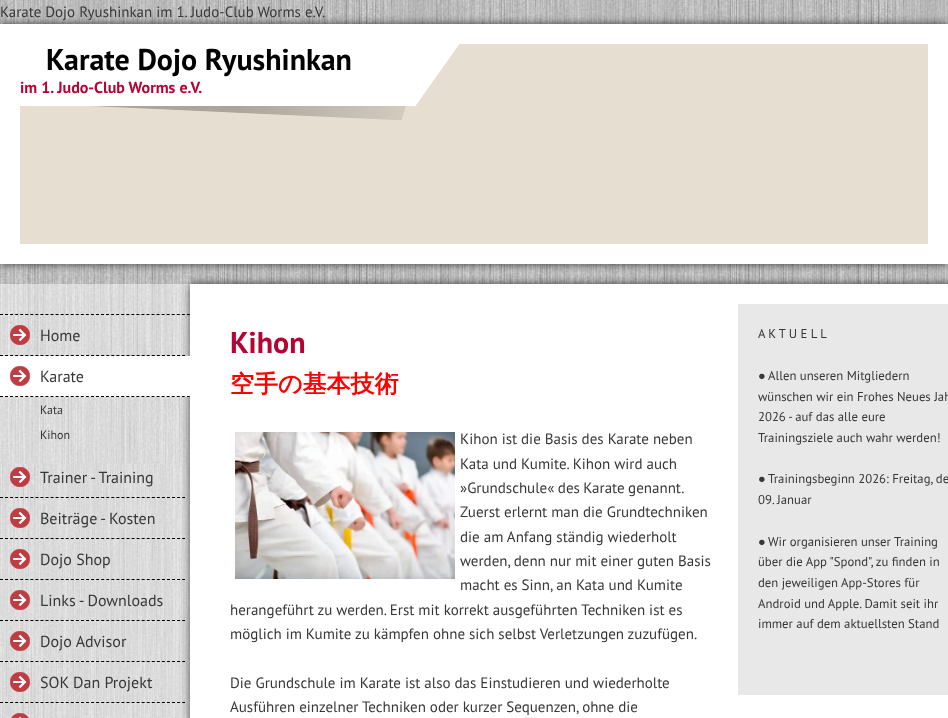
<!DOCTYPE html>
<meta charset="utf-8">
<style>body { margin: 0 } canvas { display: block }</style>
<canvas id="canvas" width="948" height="718"></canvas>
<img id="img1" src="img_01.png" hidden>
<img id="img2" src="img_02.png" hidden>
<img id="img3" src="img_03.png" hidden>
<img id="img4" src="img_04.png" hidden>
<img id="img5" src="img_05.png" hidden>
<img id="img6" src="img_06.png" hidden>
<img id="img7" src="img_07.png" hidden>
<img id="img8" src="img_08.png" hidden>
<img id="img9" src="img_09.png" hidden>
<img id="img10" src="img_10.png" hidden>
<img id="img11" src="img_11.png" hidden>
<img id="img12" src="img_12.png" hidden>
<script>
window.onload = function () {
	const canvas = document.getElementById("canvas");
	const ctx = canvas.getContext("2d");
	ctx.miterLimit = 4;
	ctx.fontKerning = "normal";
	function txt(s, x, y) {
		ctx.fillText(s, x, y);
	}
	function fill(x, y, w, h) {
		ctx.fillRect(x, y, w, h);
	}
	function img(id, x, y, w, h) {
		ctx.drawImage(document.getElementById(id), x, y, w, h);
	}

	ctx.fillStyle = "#FFFFFF";
	fill(0, 0, 948, 718);
	img("img1", 0, 0, 948, 718);
	ctx.fillStyle = "rgba(0, 0, 0, 0.7)";
	ctx.filter = "blur(4px)";
	ctx.beginPath();
	ctx.rect(0, 24, 948, 240);
	ctx.fill();
	ctx.filter = "none";
	ctx.fillStyle = "#FFFFFF";
	fill(0, 24, 948, 240);
	ctx.fillStyle = "#E6DED0";
	fill(20, 44, 908, 200);
	img("img2", 20, 44, 440, 76);
	ctx.fillStyle = "rgba(255, 255, 255, 0.48)";
	fill(0, 284, 190, 434);
	ctx.beginPath();
	ctx.moveTo(0, 314.5);
	ctx.lineTo(190, 314.5);
	ctx.strokeStyle = "#000000";
	ctx.setLineDash([3, 2.05]);
	ctx.stroke();
	ctx.fillStyle = "rgba(0, 0, 0, 0.7)";
	ctx.filter = "blur(4px)";
	ctx.beginPath();
	ctx.rect(190, 284, 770, 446);
	ctx.fill();
	ctx.filter = "none";
	ctx.beginPath();
	ctx.moveTo(0, 355.5);
	ctx.lineTo(185, 355.5);
	ctx.setLineDash([3, 2.06]);
	ctx.stroke();
	img("img3", 10, 325, 20, 20);
	ctx.fillStyle = "#FFFFFF";
	fill(0, 356, 190, 41);
	ctx.beginPath();
	ctx.moveTo(0, 396.5);
	ctx.lineTo(190, 396.5);
	ctx.setLineDash([3, 2.05]);
	ctx.stroke();
	img("img4", 10, 366, 20, 20);
	ctx.beginPath();
	ctx.moveTo(0, 497.5);
	ctx.lineTo(185, 497.5);
	ctx.setLineDash([3, 2.06]);
	ctx.stroke();
	img("img5", 10, 467, 20, 20);
	ctx.beginPath();
	ctx.moveTo(0, 538.5);
	ctx.lineTo(185, 538.5);
	ctx.stroke();
	img("img6", 10, 508, 20, 20);
	ctx.beginPath();
	ctx.moveTo(0, 579.5);
	ctx.lineTo(185, 579.5);
	ctx.stroke();
	img("img7", 10, 549, 20, 20);
	ctx.beginPath();
	ctx.moveTo(0, 620.5);
	ctx.lineTo(185, 620.5);
	ctx.stroke();
	img("img8", 10, 590, 20, 20);
	ctx.beginPath();
	ctx.moveTo(0, 661.5);
	ctx.lineTo(185, 661.5);
	ctx.stroke();
	img("img9", 10, 631, 20, 20);
	ctx.beginPath();
	ctx.moveTo(0, 702.5);
	ctx.lineTo(185, 702.5);
	ctx.stroke();
	img("img10", 10, 672, 20, 20);
	img("img11", 11, 713, 18, 5);
	fill(190, 284, 758, 434);
	img("img12", 235, 432, 220, 147);
	ctx.fillStyle = "#E8E8E9";
	fill(738, 304, 210, 391);
	ctx.font = "15px PT Sans";
	ctx.fillStyle = "#373737";
	txt("Karate Dojo Ryushinkan im 1. Judo-Club Worms e.V.", 0, 17);
	ctx.font = "bold 30px PT Sans";
	ctx.fillStyle = "#000000";
	txt("Karate Dojo Ryushinkan", 46, 70);
	ctx.font = "bold 16px PT Sans";
	ctx.fillStyle = "#B50433";
	txt("im 1. Judo-Club Worms e.V.", 20, 93);
	ctx.font = "16px PT Sans";
	ctx.fillStyle = "#373737";
	txt("Home", 40, 341);
	txt("Karate", 40, 382);
	ctx.font = "12px PT Sans";
	txt("Kata", 40, 414);
	txt("Kihon", 40, 439);
	ctx.font = "16px PT Sans";
	txt("Trainer - Training", 40, 483);
	txt("Beiträge - Kosten", 40, 524);
	txt("Dojo Shop", 40, 565);
	txt("Links - Downloads", 40, 606);
	txt("Dojo Advisor", 40, 647);
	txt("SOK Dan Projekt", 40, 688);
	ctx.font = "bold 30px PT Sans";
	ctx.fillStyle = "#B50433";
	txt("Kihon", 230, 353);
	ctx.font = "bold 24px WenQuanYi Zen Hei";
	ctx.fillStyle = "#FF0000";
	txt("空手の基本技術", 230, 392);
	ctx.font = "15px PT Sans";
	ctx.fillStyle = "#373737";
	txt("Kihon ist die Basis des Karate neben", 460, 444);
	txt("Kata und Kumite. Kihon wird auch", 460, 469);
	ctx.wordSpacing = "-0.5px";
	txt("»Grundschule« des Karate genannt.", 460, 493);
	ctx.wordSpacing = "0px";
	txt("Zuerst erlernt man die Grundtechniken", 460, 517);
	txt("die am Anfang ständig wiederholt", 460, 542);
	txt("werden, denn nur mit einer guten Basis", 460, 566);
	txt("macht es Sinn, an Kata und Kumite", 460, 590);
	txt("herangeführt zu werden. Erst mit korrekt ausgeführten Techniken ist es", 230, 615);
	txt("möglich im Kumite zu kämpfen ohne sich selbst Verletzungen zuzufügen.", 230, 639);
	txt("Die Grundschule im Karate ist also das Einstudieren und wiederholte", 230, 688);
	txt("Ausführen einzelner Techniken oder kurzer Sequenzen, ohne die", 230, 712);
	ctx.font = "12.75px PT Sans";
	txt("A K T U E L L", 758, 338);
	ctx.font = "12.75px Liberation Sans";
	txt("●", 758, 380);
	ctx.font = "12.75px PT Sans";
	txt("Allen unseren Mitgliedern", 768, 380);
	txt("wünschen wir ein Frohes Neues Jah", 758, 401);
	txt("2026 - auf das alle eure", 758, 421);
	txt("Trainingsziele auch wahr werden!", 758, 442);
	ctx.font = "12.75px Liberation Sans";
	txt("●", 758, 483);
	ctx.font = "12.75px PT Sans";
	txt("Trainingsbeginn 2026: Freitag, de", 768, 483);
	txt("09. Januar", 758, 504);
	ctx.font = "12.75px Liberation Sans";
	txt("●", 758, 546);
	ctx.font = "12.75px PT Sans";
	txt("Wir organisieren unser Training", 768, 546);
	txt("über die App \"Spond\", zu finden in", 758, 566);
	txt("den jeweiligen App-Stores für", 758, 587);
	txt("Android und Apple. Damit seit ihr", 758, 608);
	txt("immer auf dem aktuellsten Stand", 758, 628);
};
</script>
